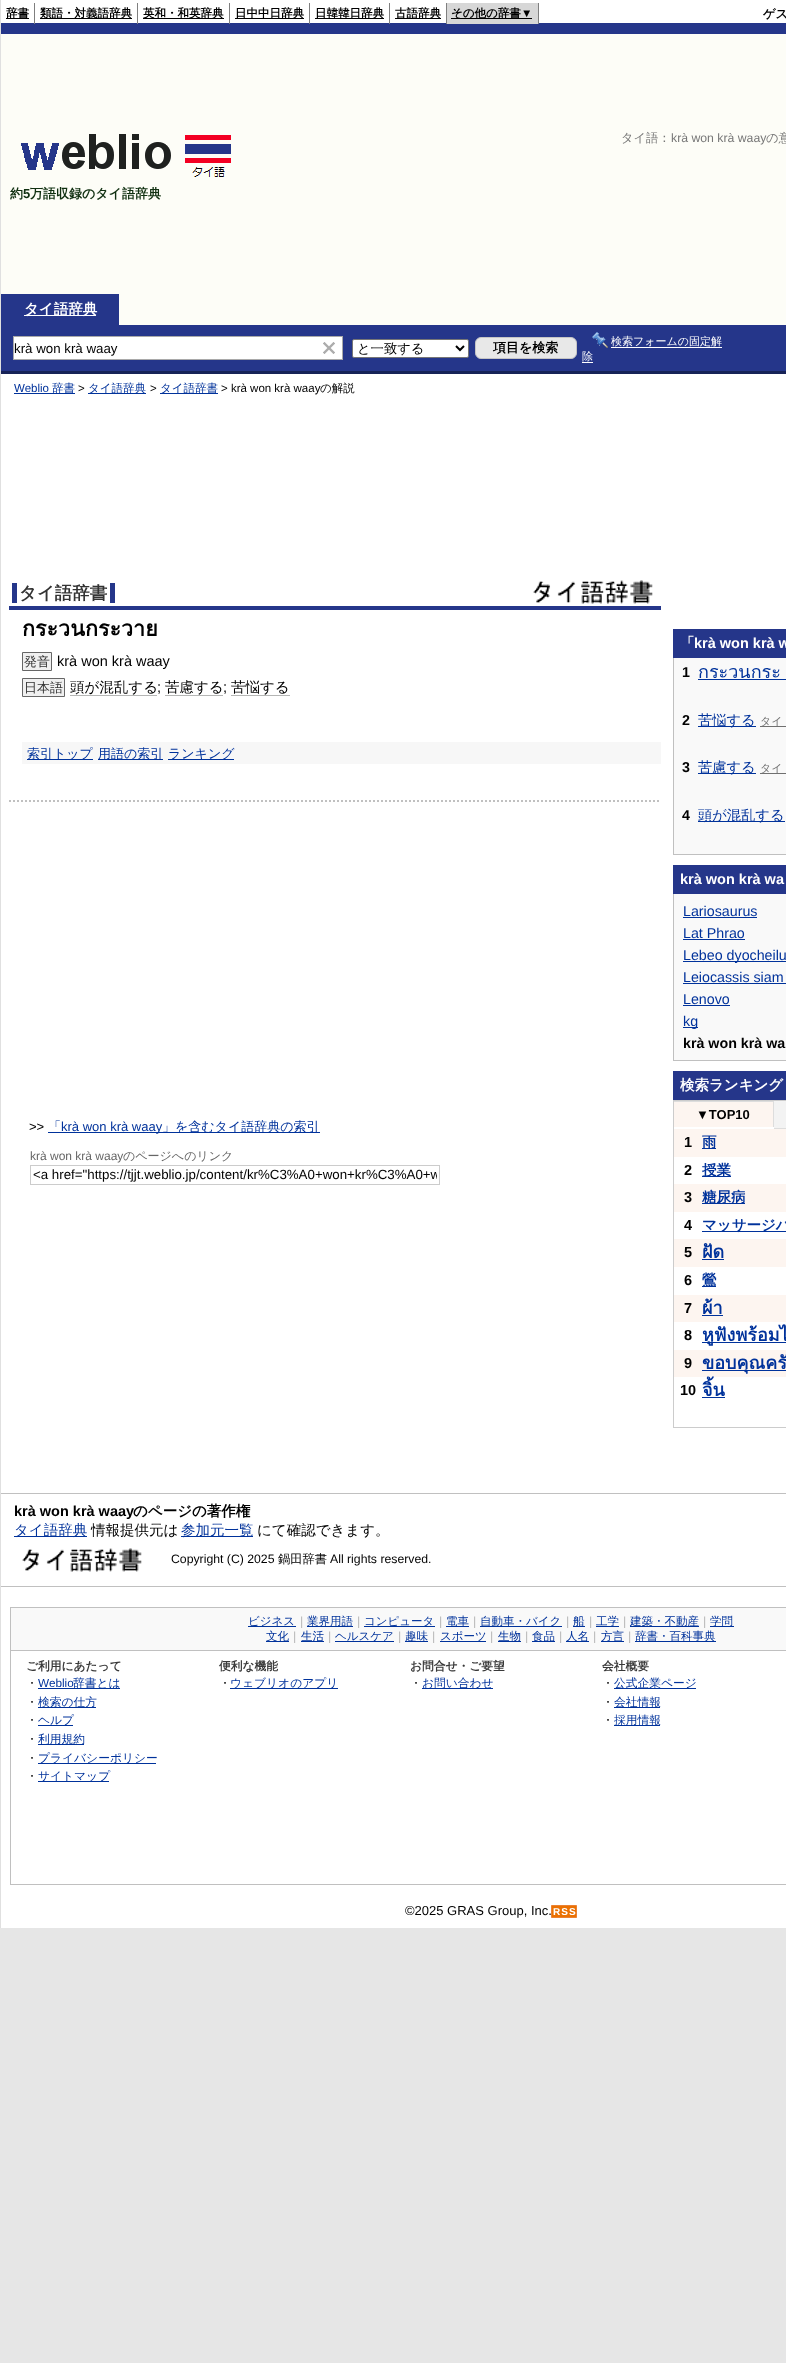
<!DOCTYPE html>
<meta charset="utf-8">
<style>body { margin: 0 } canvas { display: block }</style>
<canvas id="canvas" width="786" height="2363"></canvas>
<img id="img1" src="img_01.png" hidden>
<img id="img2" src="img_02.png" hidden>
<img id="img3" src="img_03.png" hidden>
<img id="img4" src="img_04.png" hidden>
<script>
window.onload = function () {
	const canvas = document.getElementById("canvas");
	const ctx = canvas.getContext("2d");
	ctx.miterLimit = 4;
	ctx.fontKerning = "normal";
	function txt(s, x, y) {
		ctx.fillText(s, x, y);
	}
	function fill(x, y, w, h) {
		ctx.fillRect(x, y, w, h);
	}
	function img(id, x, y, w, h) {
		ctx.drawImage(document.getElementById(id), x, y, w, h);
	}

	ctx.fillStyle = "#E6E6E6";
	fill(0, 0, 786, 2363);
	ctx.fillStyle = "#FFFFFF";
	fill(1, 0, 785, 1928);
	ctx.fillStyle = "#E0E0E0";
	fill(0, 0, 1, 1928);
	ctx.fillStyle = "#25368A";
	fill(1, 23, 785, 11);
	ctx.fillStyle = "#7F7F7F";
	fill(34, 3, 1, 21);
	ctx.fillStyle = "#000000";
	fill(6, 18, 23, 1);
	ctx.fillStyle = "#7F7F7F";
	fill(137, 3, 1, 21);
	ctx.fillStyle = "#000000";
	fill(40, 18, 92, 1);
	ctx.fillStyle = "#7F7F7F";
	fill(229, 3, 1, 21);
	ctx.fillStyle = "#000000";
	fill(143, 18, 81, 1);
	ctx.fillStyle = "#7F7F7F";
	fill(309, 3, 1, 21);
	ctx.fillStyle = "#000000";
	fill(235, 18, 69, 1);
	ctx.fillStyle = "#7F7F7F";
	fill(389, 3, 1, 21);
	ctx.fillStyle = "#000000";
	fill(315, 18, 69, 1);
	ctx.fillStyle = "#7F7F7F";
	fill(446, 3, 1, 21);
	ctx.fillStyle = "#000000";
	fill(395, 18, 46, 1);
	ctx.fillStyle = "#D7D7D7";
	fill(447, 3, 91, 21);
	ctx.fillStyle = "#7F7F7F";
	fill(538, 3, 1, 21);
	ctx.fillStyle = "#000000";
	fill(451, 18, 81, 1);
	ctx.fillStyle = "#FDFDF7";
	fill(1, 34, 785, 260);
	img("img1", 21, 134, 210, 43);
	fill(119, 294, 667, 31);
	ctx.fillStyle = "#25368A";
	fill(1, 294, 118, 31);
	ctx.fillStyle = "#FFFFFF";
	fill(24, 315, 72, 1);
	ctx.fillStyle = "#25368A";
	fill(1, 325, 785, 46);
	ctx.fillStyle = "#172357";
	fill(1, 371, 785, 3);
	ctx.fillStyle = "#FFFFFF";
	fill(14, 337, 328, 22);
	ctx.fillStyle = "#A9A9A9";
	fill(13, 336, 330, 1);
	fill(342, 336, 1, 24);
	fill(13, 359, 330, 1);
	fill(13, 336, 1, 24);
	img("img2", 323, 342, 12, 12);
	ctx.fillStyle = "#FFFFFF";
	ctx.beginPath();
	ctx.roundRect(352.5, 339.5, 116, 18, 1.5);
	ctx.fill();
	ctx.strokeStyle = "#767676";
	ctx.stroke();
	ctx.beginPath();
	ctx.moveTo(456, 346);
	ctx.lineTo(460, 350);
	ctx.lineTo(464, 346);
	ctx.strokeStyle = "#000000";
	ctx.lineWidth = 2;
	ctx.stroke();
	ctx.fillStyle = "#E8E8E8";
	ctx.beginPath();
	ctx.roundRect(475.5, 337.5, 101, 21, 5.5);
	ctx.fill();
	ctx.strokeStyle = "#C5C5C5";
	ctx.lineWidth = 1;
	ctx.stroke();
	img("img3", 592, 332, 16, 16);
	ctx.fillStyle = "#FFFFFF";
	fill(611, 347, 111, 1);
	fill(582, 362, 11, 1);
	ctx.fillStyle = "#00329B";
	fill(14, 393, 61, 1);
	fill(88, 393, 58, 1);
	fill(160, 393, 58, 1);
	ctx.fillStyle = "#25368A";
	fill(9, 606, 652, 4);
	fill(110, 583, 5, 20);
	fill(12, 583, 5, 20);
	img("img4", 533, 580, 120, 24);
	ctx.fillStyle = "#F0F0F0";
	ctx.beginPath();
	ctx.rect(22.5, 652.5, 29, 18);
	ctx.fill();
	ctx.strokeStyle = "#666666";
	ctx.stroke();
	ctx.beginPath();
	ctx.rect(22.5, 678.5, 42, 18);
	ctx.fill();
	ctx.stroke();
	ctx.fillStyle = "#B5B6B5";
	fill(70, 695, 87, 1);
	fill(165, 695, 58, 1);
	fill(231, 695, 59, 1);
	ctx.fillStyle = "#F7F7F7";
	fill(22, 742, 639, 22);
	ctx.fillStyle = "#00329B";
	fill(27, 759, 66, 1);
	fill(98, 759, 65, 1);
	fill(168, 759, 66, 1);
	ctx.beginPath();
	ctx.moveTo(9, 801);
	ctx.lineTo(661, 801);
	ctx.strokeStyle = "#C0C0C0";
	ctx.lineWidth = 2;
	ctx.setLineDash([2, 2]);
	ctx.stroke();
	fill(48, 1132, 272, 1);
	ctx.strokeStyle = "#CCCCCC";
	ctx.lineWidth = 1;
	ctx.setLineDash([]);
	ctx.strokeRect(30.5, 1165.5, 409, 19);
	ctx.fillStyle = "#25368A";
	fill(673, 629, 113, 29);
	ctx.fillStyle = "#F9F9F9";
	fill(674, 658, 112, 196);
	ctx.fillStyle = "#C0C0C0";
	fill(673, 854, 113, 1);
	fill(673, 658, 1, 197);
	ctx.fillStyle = "#00329B";
	fill(698, 679, 88, 1);
	fill(698, 726, 58, 1);
	ctx.fillStyle = "#707070";
	fill(760, 726, 26, 1);
	ctx.fillStyle = "#00329B";
	fill(698, 773, 58, 1);
	ctx.fillStyle = "#707070";
	fill(760, 773, 26, 1);
	ctx.fillStyle = "#00329B";
	fill(698, 821, 87, 1);
	ctx.fillStyle = "#25368A";
	fill(673, 865, 113, 29);
	ctx.fillStyle = "#F9F9F9";
	fill(674, 894, 112, 166);
	ctx.fillStyle = "#C0C0C0";
	fill(673, 1060, 113, 1);
	fill(673, 894, 1, 167);
	ctx.fillStyle = "#00329B";
	fill(683, 917, 74, 1);
	fill(683, 939, 62, 1);
	fill(683, 961, 103, 1);
	fill(683, 983, 103, 1);
	fill(683, 1005, 47, 1);
	fill(683, 1027, 15, 1);
	ctx.fillStyle = "#25368A";
	fill(673, 1071, 113, 29);
	ctx.strokeRect(673.5, 1100.5, 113, 327);
	ctx.fillStyle = "#FDF5F0";
	fill(674, 1102, 99, 25);
	ctx.fillStyle = "#DDDDDD";
	fill(674, 1101, 100, 1);
	fill(773, 1101, 1, 26);
	ctx.fillStyle = "#F3F3F3";
	fill(774, 1101, 12, 27);
	ctx.fillStyle = "#DDDDDD";
	fill(774, 1128, 12, 1);
	ctx.fillStyle = "#FDF5F0";
	fill(674, 1129, 112, 28);
	ctx.fillStyle = "#00329B";
	fill(702, 1148, 14, 1);
	fill(702, 1176, 29, 1);
	ctx.fillStyle = "#FDF5F0";
	fill(674, 1184, 112, 28);
	ctx.fillStyle = "#00329B";
	fill(702, 1203, 43, 1);
	fill(702, 1231, 84, 1);
	ctx.fillStyle = "#FDF5F0";
	fill(674, 1239, 112, 28);
	ctx.fillStyle = "#00329B";
	fill(702, 1259, 22, 1);
	fill(702, 1286, 14, 1);
	ctx.fillStyle = "#FDF5F0";
	fill(674, 1295, 112, 27);
	ctx.fillStyle = "#00329B";
	fill(702, 1315, 21, 1);
	fill(702, 1342, 84, 1);
	ctx.fillStyle = "#FDF5F0";
	fill(674, 1350, 112, 27);
	ctx.fillStyle = "#00329B";
	fill(702, 1370, 84, 1);
	fill(702, 1397, 23, 1);
	ctx.fillStyle = "#C0C0C0";
	fill(1, 1493, 785, 1);
	ctx.fillStyle = "#00329B";
	fill(14, 1536, 73, 1);
	fill(181, 1536, 72, 1);
	img("img4", 22, 1548, 120, 24);
	ctx.fillStyle = "#C0C0C0";
	fill(1, 1586, 785, 1);
	ctx.strokeStyle = "#C0C0C0";
	ctx.strokeRect(10.5, 1607.5, 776, 277);
	ctx.fillStyle = "#F9F9F9";
	fill(11, 1608, 775, 42);
	ctx.fillStyle = "#C0C0C0";
	fill(11, 1650, 775, 1);
	ctx.fillStyle = "#00329B";
	fill(248, 1626, 48, 1);
	fill(307, 1626, 46, 1);
	fill(364, 1626, 71, 1);
	fill(446, 1626, 23, 1);
	fill(480, 1626, 82, 1);
	fill(573, 1626, 12, 1);
	fill(596, 1626, 23, 1);
	fill(630, 1626, 69, 1);
	fill(710, 1626, 24, 1);
	fill(266, 1641, 23, 1);
	fill(301, 1641, 23, 1);
	fill(335, 1641, 59, 1);
	fill(405, 1641, 23, 1);
	fill(440, 1641, 46, 1);
	fill(498, 1641, 23, 1);
	fill(532, 1641, 23, 1);
	fill(566, 1641, 23, 1);
	fill(601, 1641, 23, 1);
	fill(635, 1641, 81, 1);
	fill(38, 1688, 82, 1);
	fill(38, 1707, 58, 1);
	fill(38, 1725, 35, 1);
	fill(38, 1744, 46, 1);
	fill(38, 1763, 118, 1);
	fill(38, 1781, 71, 1);
	fill(230, 1688, 108, 1);
	fill(422, 1688, 71, 1);
	fill(614, 1688, 82, 1);
	fill(614, 1707, 46, 1);
	fill(614, 1725, 46, 1);
	ctx.fillStyle = "#EB7101";
	ctx.beginPath();
	ctx.rect(551.5, 1905.5, 25, 12);
	ctx.fill();
	ctx.strokeStyle = "#EA8233";
	ctx.stroke();
	ctx.font = "bold 11.5px WenQuanYi Zen Hei";
	ctx.fillStyle = "#000000";
	txt("辞書", 6, 17);
	txt("類語・対義語辞典", 40, 17);
	txt("英和・和英辞典", 143, 17);
	txt("日中中日辞典", 235, 17);
	txt("日韓韓日辞典", 315, 17);
	txt("古語辞典", 395, 17);
	txt("その他の辞書", 451, 17);
	ctx.font = "bold 11.5px Liberation Sans";
	txt("▼", 521, 17);
	ctx.font = "bold 12.25px WenQuanYi Zen Hei";
	txt("ゲス", 763, 18);
	ctx.font = "500 12.25px WenQuanYi Zen Hei";
	ctx.fillStyle = "#777777";
	txt("タイ語：", 621, 142);
	ctx.font = "12.25px Liberation Sans";
	txt("krà won krà waay", 671, 142);
	ctx.font = "500 12.25px WenQuanYi Zen Hei";
	txt("の意", 766, 142);
	ctx.font = "bold 13px WenQuanYi Zen Hei";
	ctx.fillStyle = "#103011";
	txt("約", 10, 198);
	ctx.font = "bold 13px Liberation Sans";
	txt("5", 23, 198);
	ctx.font = "bold 13px WenQuanYi Zen Hei";
	txt("万語収録のタイ語辞典", 30, 198);
	ctx.font = "bold 14.5px WenQuanYi Zen Hei";
	ctx.fillStyle = "#FFFFFF";
	txt("タイ語辞典", 24, 314);
	ctx.font = "13.3px Liberation Sans";
	ctx.fillStyle = "#000000";
	txt("krà won krà waay", 14, 353);
	ctx.font = "500 13.3px WenQuanYi Zen Hei";
	txt("と一致する", 357, 353);
	ctx.font = "bold 13px WenQuanYi Zen Hei";
	txt("項目を検索", 493, 352);
	ctx.font = "500 11px WenQuanYi Zen Hei";
	ctx.fillStyle = "#FFFFFF";
	txt("検索フォームの固定解", 611, 345);
	txt("除", 582, 360);
	ctx.font = "11.5px Liberation Sans";
	ctx.fillStyle = "#00329B";
	txt("Weblio", 14, 392);
	ctx.font = "500 11.5px WenQuanYi Zen Hei";
	txt("辞書", 52, 392);
	ctx.font = "11.5px Liberation Sans";
	ctx.fillStyle = "#000000";
	txt(">", 78, 392);
	ctx.font = "500 11.5px WenQuanYi Zen Hei";
	ctx.fillStyle = "#00329B";
	txt("タイ語辞典", 88, 392);
	ctx.font = "11.5px Liberation Sans";
	ctx.fillStyle = "#000000";
	txt(">", 150, 392);
	ctx.font = "500 11.5px WenQuanYi Zen Hei";
	ctx.fillStyle = "#00329B";
	txt("タイ語辞書", 160, 392);
	ctx.font = "11.5px Liberation Sans";
	ctx.fillStyle = "#000000";
	txt("> krà won krà waay", 221, 392);
	ctx.font = "500 11.5px WenQuanYi Zen Hei";
	txt("の解説", 320, 392);
	ctx.font = "bold 17.5px WenQuanYi Zen Hei";
	ctx.fillStyle = "#333333";
	txt("タイ語辞書", 19, 599);
	ctx.font = "bold 21.5px Loma";
	ctx.fillStyle = "#000000";
	txt("กระวนกระวาย", 22, 636);
	ctx.font = "500 13px WenQuanYi Zen Hei";
	ctx.fillStyle = "#333333";
	txt("発音", 24, 666);
	ctx.font = "14.5px Liberation Sans";
	ctx.fillStyle = "#000000";
	txt("krà won krà waay", 57, 666);
	ctx.font = "500 13px WenQuanYi Zen Hei";
	ctx.fillStyle = "#333333";
	txt("日本語", 24, 692);
	ctx.font = "500 14.5px WenQuanYi Zen Hei";
	ctx.fillStyle = "#000000";
	txt("頭が混乱する", 70, 692);
	ctx.font = "14.5px Liberation Sans";
	txt(";", 157, 692);
	ctx.font = "500 14.5px WenQuanYi Zen Hei";
	txt("苦慮する", 165, 692);
	ctx.font = "14.5px Liberation Sans";
	txt(";", 223, 692);
	ctx.font = "500 14.5px WenQuanYi Zen Hei";
	txt("苦悩する", 231, 692);
	ctx.font = "500 13px WenQuanYi Zen Hei";
	ctx.fillStyle = "#00329B";
	txt("索引トップ", 27, 758);
	txt("用語の索引", 98, 758);
	txt("ランキング", 168, 758);
	ctx.font = "13px Liberation Sans";
	ctx.fillStyle = "#000000";
	txt(">>", 29, 1131);
	ctx.font = "500 13px WenQuanYi Zen Hei";
	ctx.fillStyle = "#00329B";
	txt("「", 48, 1131);
	ctx.font = "13px Liberation Sans";
	txt("krà won krà waay", 61, 1131);
	ctx.font = "500 13px WenQuanYi Zen Hei";
	txt("」を含むタイ語辞典の索引", 162, 1131);
	ctx.font = "12px Liberation Sans";
	ctx.fillStyle = "#666666";
	txt("krà won krà waay", 30, 1160);
	ctx.font = "500 12px WenQuanYi Zen Hei";
	txt("のページへのリンク", 123, 1160);
	ctx.save();
	ctx.beginPath();
	ctx.rect(33, 1167, 404, 15);
	ctx.clip();
	ctx.font = "13.3px Liberation Sans";
	ctx.fillStyle = "#000000";
	txt("<a href=\"https://tjjt.weblio.jp/content/kr%C3%A0+won+kr%C3%A0+w", 33, 1179);
	ctx.restore();
	ctx.font = "bold 14.5px WenQuanYi Zen Hei";
	ctx.fillStyle = "#FFFFFF";
	txt("「", 680, 648);
	ctx.font = "bold 14.5px Liberation Sans";
	txt("krà won krà w", 694, 648);
	ctx.font = "bold 14.25px Liberation Sans";
	ctx.fillStyle = "#000000";
	txt("1", 682, 677);
	ctx.font = "18px Loma";
	ctx.fillStyle = "#00329B";
	txt("กระวนกระ", 698, 678);
	ctx.font = "bold 14.25px Liberation Sans";
	ctx.fillStyle = "#000000";
	txt("2", 682, 725);
	ctx.font = "500 14.25px WenQuanYi Zen Hei";
	ctx.fillStyle = "#00329B";
	txt("苦悩する", 698, 725);
	ctx.font = "500 11px WenQuanYi Zen Hei";
	ctx.fillStyle = "#707070";
	txt("タイ", 760, 725);
	ctx.font = "bold 14.25px Liberation Sans";
	ctx.fillStyle = "#000000";
	txt("3", 682, 772);
	ctx.font = "500 14.25px WenQuanYi Zen Hei";
	ctx.fillStyle = "#00329B";
	txt("苦慮する", 698, 772);
	ctx.font = "500 11px WenQuanYi Zen Hei";
	ctx.fillStyle = "#707070";
	txt("タイ", 760, 772);
	ctx.font = "bold 14.25px Liberation Sans";
	ctx.fillStyle = "#000000";
	txt("4", 682, 820);
	ctx.font = "500 14.25px WenQuanYi Zen Hei";
	ctx.fillStyle = "#00329B";
	txt("頭が混乱する", 698, 820);
	ctx.font = "bold 14.5px Liberation Sans";
	ctx.fillStyle = "#FFFFFF";
	txt("krà won krà wa", 680, 884);
	ctx.font = "14.25px Liberation Sans";
	ctx.fillStyle = "#00329B";
	txt("Lariosaurus", 683, 916);
	txt("Lat Phrao", 683, 938);
	txt("Lebeo dyocheilu", 683, 960);
	txt("Leiocassis siam", 683, 982);
	txt("Lenovo", 683, 1004);
	txt("kg", 683, 1026);
	ctx.font = "bold 14.25px Liberation Sans";
	ctx.fillStyle = "#000000";
	txt("krà won krà wa", 683, 1048);
	ctx.font = "bold 14.5px WenQuanYi Zen Hei";
	ctx.fillStyle = "#FFFFFF";
	txt("検索ランキング", 680, 1090);
	ctx.font = "bold 13px Liberation Sans";
	ctx.fillStyle = "#000000";
	txt("▼TOP10", 696, 1119);
	ctx.font = "bold 14.5px Liberation Sans";
	txt("1", 684, 1147);
	ctx.font = "bold 14.5px WenQuanYi Zen Hei";
	ctx.fillStyle = "#00329B";
	txt("雨", 702, 1147);
	ctx.font = "bold 14.5px Liberation Sans";
	ctx.fillStyle = "#000000";
	txt("2", 684, 1175);
	ctx.font = "bold 14.5px WenQuanYi Zen Hei";
	ctx.fillStyle = "#00329B";
	txt("授業", 702, 1175);
	ctx.font = "bold 14.5px Liberation Sans";
	ctx.fillStyle = "#000000";
	txt("3", 684, 1202);
	ctx.font = "bold 14.5px WenQuanYi Zen Hei";
	ctx.fillStyle = "#00329B";
	txt("糖尿病", 702, 1202);
	ctx.font = "bold 14.5px Liberation Sans";
	ctx.fillStyle = "#000000";
	txt("4", 684, 1230);
	ctx.font = "bold 14.5px WenQuanYi Zen Hei";
	ctx.fillStyle = "#00329B";
	txt("マッサージパ", 702, 1230);
	ctx.font = "bold 14.5px Liberation Sans";
	ctx.fillStyle = "#000000";
	txt("5", 684, 1257);
	ctx.font = "bold 18px Loma";
	ctx.fillStyle = "#00329B";
	txt("ฝัด", 702, 1258);
	ctx.font = "bold 14.5px Liberation Sans";
	ctx.fillStyle = "#000000";
	txt("6", 684, 1285);
	ctx.font = "bold 14.5px WenQuanYi Zen Hei";
	ctx.fillStyle = "#00329B";
	txt("鶯", 702, 1285);
	ctx.font = "bold 14.5px Liberation Sans";
	ctx.fillStyle = "#000000";
	txt("7", 684, 1313);
	ctx.font = "bold 18px Loma";
	ctx.fillStyle = "#00329B";
	txt("ผ้า", 702, 1314);
	ctx.font = "bold 14.5px Liberation Sans";
	ctx.fillStyle = "#000000";
	txt("8", 684, 1340);
	ctx.font = "bold 18px Loma";
	ctx.fillStyle = "#00329B";
	txt("หูฟังพร้อมไ", 702, 1341);
	ctx.font = "bold 14.5px Liberation Sans";
	ctx.fillStyle = "#000000";
	txt("9", 684, 1368);
	ctx.font = "bold 18px Loma";
	ctx.fillStyle = "#00329B";
	txt("ขอบคุณครั", 702, 1369);
	ctx.font = "bold 14.5px Liberation Sans";
	ctx.fillStyle = "#000000";
	txt("10", 680, 1395);
	ctx.font = "bold 18px Loma";
	ctx.fillStyle = "#00329B";
	txt("จิ้น", 702, 1396);
	ctx.font = "bold 14.5px Liberation Sans";
	ctx.fillStyle = "#000000";
	txt("krà won krà waay", 14, 1516);
	ctx.font = "bold 14.5px WenQuanYi Zen Hei";
	txt("のページの著作権", 133, 1516);
	ctx.font = "500 14.5px WenQuanYi Zen Hei";
	ctx.fillStyle = "#00329B";
	txt("タイ語辞典", 14, 1535);
	ctx.fillStyle = "#000000";
	txt("情報提供元は", 91, 1535);
	ctx.fillStyle = "#00329B";
	txt("参加元一覧", 181, 1535);
	ctx.fillStyle = "#000000";
	txt("にて確認できます。", 257, 1535);
	ctx.font = "12.25px Liberation Sans";
	txt("Copyright (C) 2025", 171, 1563);
	ctx.font = "500 12.25px WenQuanYi Zen Hei";
	txt("鍋田辞書", 278, 1563);
	ctx.font = "12.25px Liberation Sans";
	txt("All rights reserved.", 330, 1563);
	ctx.font = "500 11.5px WenQuanYi Zen Hei";
	ctx.fillStyle = "#00329B";
	txt("ビジネス", 248, 1625);
	ctx.fillStyle = "#9E9E9E";
	txt("｜", 296, 1625);
	ctx.fillStyle = "#00329B";
	txt("業界用語", 307, 1625);
	ctx.fillStyle = "#9E9E9E";
	txt("｜", 353, 1625);
	ctx.fillStyle = "#00329B";
	txt("コンピュータ", 364, 1625);
	ctx.fillStyle = "#9E9E9E";
	txt("｜", 435, 1625);
	ctx.fillStyle = "#00329B";
	txt("電車", 446, 1625);
	ctx.fillStyle = "#9E9E9E";
	txt("｜", 469, 1625);
	ctx.fillStyle = "#00329B";
	txt("自動車・バイク", 480, 1625);
	ctx.fillStyle = "#9E9E9E";
	txt("｜", 562, 1625);
	ctx.fillStyle = "#00329B";
	txt("船", 573, 1625);
	ctx.fillStyle = "#9E9E9E";
	txt("｜", 585, 1625);
	ctx.fillStyle = "#00329B";
	txt("工学", 596, 1625);
	ctx.fillStyle = "#9E9E9E";
	txt("｜", 619, 1625);
	ctx.fillStyle = "#00329B";
	txt("建築・不動産", 630, 1625);
	ctx.fillStyle = "#9E9E9E";
	txt("｜", 699, 1625);
	ctx.fillStyle = "#00329B";
	txt("学問", 710, 1625);
	txt("文化", 266, 1640);
	ctx.fillStyle = "#9E9E9E";
	txt("｜", 289, 1640);
	ctx.fillStyle = "#00329B";
	txt("生活", 301, 1640);
	ctx.fillStyle = "#9E9E9E";
	txt("｜", 324, 1640);
	ctx.fillStyle = "#00329B";
	txt("ヘルスケア", 335, 1640);
	ctx.fillStyle = "#9E9E9E";
	txt("｜", 394, 1640);
	ctx.fillStyle = "#00329B";
	txt("趣味", 405, 1640);
	ctx.fillStyle = "#9E9E9E";
	txt("｜", 428, 1640);
	ctx.fillStyle = "#00329B";
	txt("スポーツ", 440, 1640);
	ctx.fillStyle = "#9E9E9E";
	txt("｜", 486, 1640);
	ctx.fillStyle = "#00329B";
	txt("生物", 498, 1640);
	ctx.fillStyle = "#9E9E9E";
	txt("｜", 521, 1640);
	ctx.fillStyle = "#00329B";
	txt("食品", 532, 1640);
	ctx.fillStyle = "#9E9E9E";
	txt("｜", 555, 1640);
	ctx.fillStyle = "#00329B";
	txt("人名", 566, 1640);
	ctx.fillStyle = "#9E9E9E";
	txt("｜", 589, 1640);
	ctx.fillStyle = "#00329B";
	txt("方言", 601, 1640);
	ctx.fillStyle = "#9E9E9E";
	txt("｜", 624, 1640);
	ctx.fillStyle = "#00329B";
	txt("辞書・百科事典", 635, 1640);
	ctx.font = "bold 11.75px WenQuanYi Zen Hei";
	ctx.fillStyle = "#393939";
	txt("ご利用にあたって", 26, 1670);
	ctx.font = "500 11.75px WenQuanYi Zen Hei";
	ctx.fillStyle = "#000000";
	txt("・", 26, 1687);
	ctx.font = "11.75px Liberation Sans";
	ctx.fillStyle = "#00329B";
	txt("Weblio", 38, 1687);
	ctx.font = "500 11.75px WenQuanYi Zen Hei";
	txt("辞書とは", 73, 1687);
	ctx.fillStyle = "#000000";
	txt("・", 26, 1706);
	ctx.fillStyle = "#00329B";
	txt("検索の仕方", 38, 1706);
	ctx.fillStyle = "#000000";
	txt("・", 26, 1724);
	ctx.fillStyle = "#00329B";
	txt("ヘルプ", 38, 1724);
	ctx.fillStyle = "#000000";
	txt("・", 26, 1743);
	ctx.fillStyle = "#00329B";
	txt("利用規約", 38, 1743);
	ctx.fillStyle = "#000000";
	txt("・", 26, 1762);
	ctx.fillStyle = "#00329B";
	txt("プライバシーポリシー", 38, 1762);
	ctx.fillStyle = "#000000";
	txt("・", 26, 1780);
	ctx.fillStyle = "#00329B";
	txt("サイトマップ", 38, 1780);
	ctx.font = "bold 11.75px WenQuanYi Zen Hei";
	ctx.fillStyle = "#393939";
	txt("便利な機能", 219, 1670);
	ctx.font = "500 11.75px WenQuanYi Zen Hei";
	ctx.fillStyle = "#000000";
	txt("・", 219, 1687);
	ctx.fillStyle = "#00329B";
	txt("ウェブリオのアプリ", 230, 1687);
	ctx.font = "bold 11.75px WenQuanYi Zen Hei";
	ctx.fillStyle = "#393939";
	txt("お問合せ・ご要望", 410, 1670);
	ctx.font = "500 11.75px WenQuanYi Zen Hei";
	ctx.fillStyle = "#000000";
	txt("・", 410, 1687);
	ctx.fillStyle = "#00329B";
	txt("お問い合わせ", 422, 1687);
	ctx.font = "bold 11.75px WenQuanYi Zen Hei";
	ctx.fillStyle = "#393939";
	txt("会社概要", 602, 1670);
	ctx.font = "500 11.75px WenQuanYi Zen Hei";
	ctx.fillStyle = "#000000";
	txt("・", 602, 1687);
	ctx.fillStyle = "#00329B";
	txt("公式企業ページ", 614, 1687);
	ctx.fillStyle = "#000000";
	txt("・", 602, 1706);
	ctx.fillStyle = "#00329B";
	txt("会社情報", 614, 1706);
	ctx.fillStyle = "#000000";
	txt("・", 602, 1724);
	ctx.fillStyle = "#00329B";
	txt("採用情報", 614, 1724);
	ctx.font = "13px Liberation Sans";
	ctx.fillStyle = "#000000";
	txt("©2025 GRAS Group, Inc.", 405, 1915);
	ctx.letterSpacing = "1px";
	ctx.font = "bold 10px Liberation Sans";
	ctx.fillStyle = "#FFFFFF";
	txt("RSS", 553, 1915);
};
</script>
